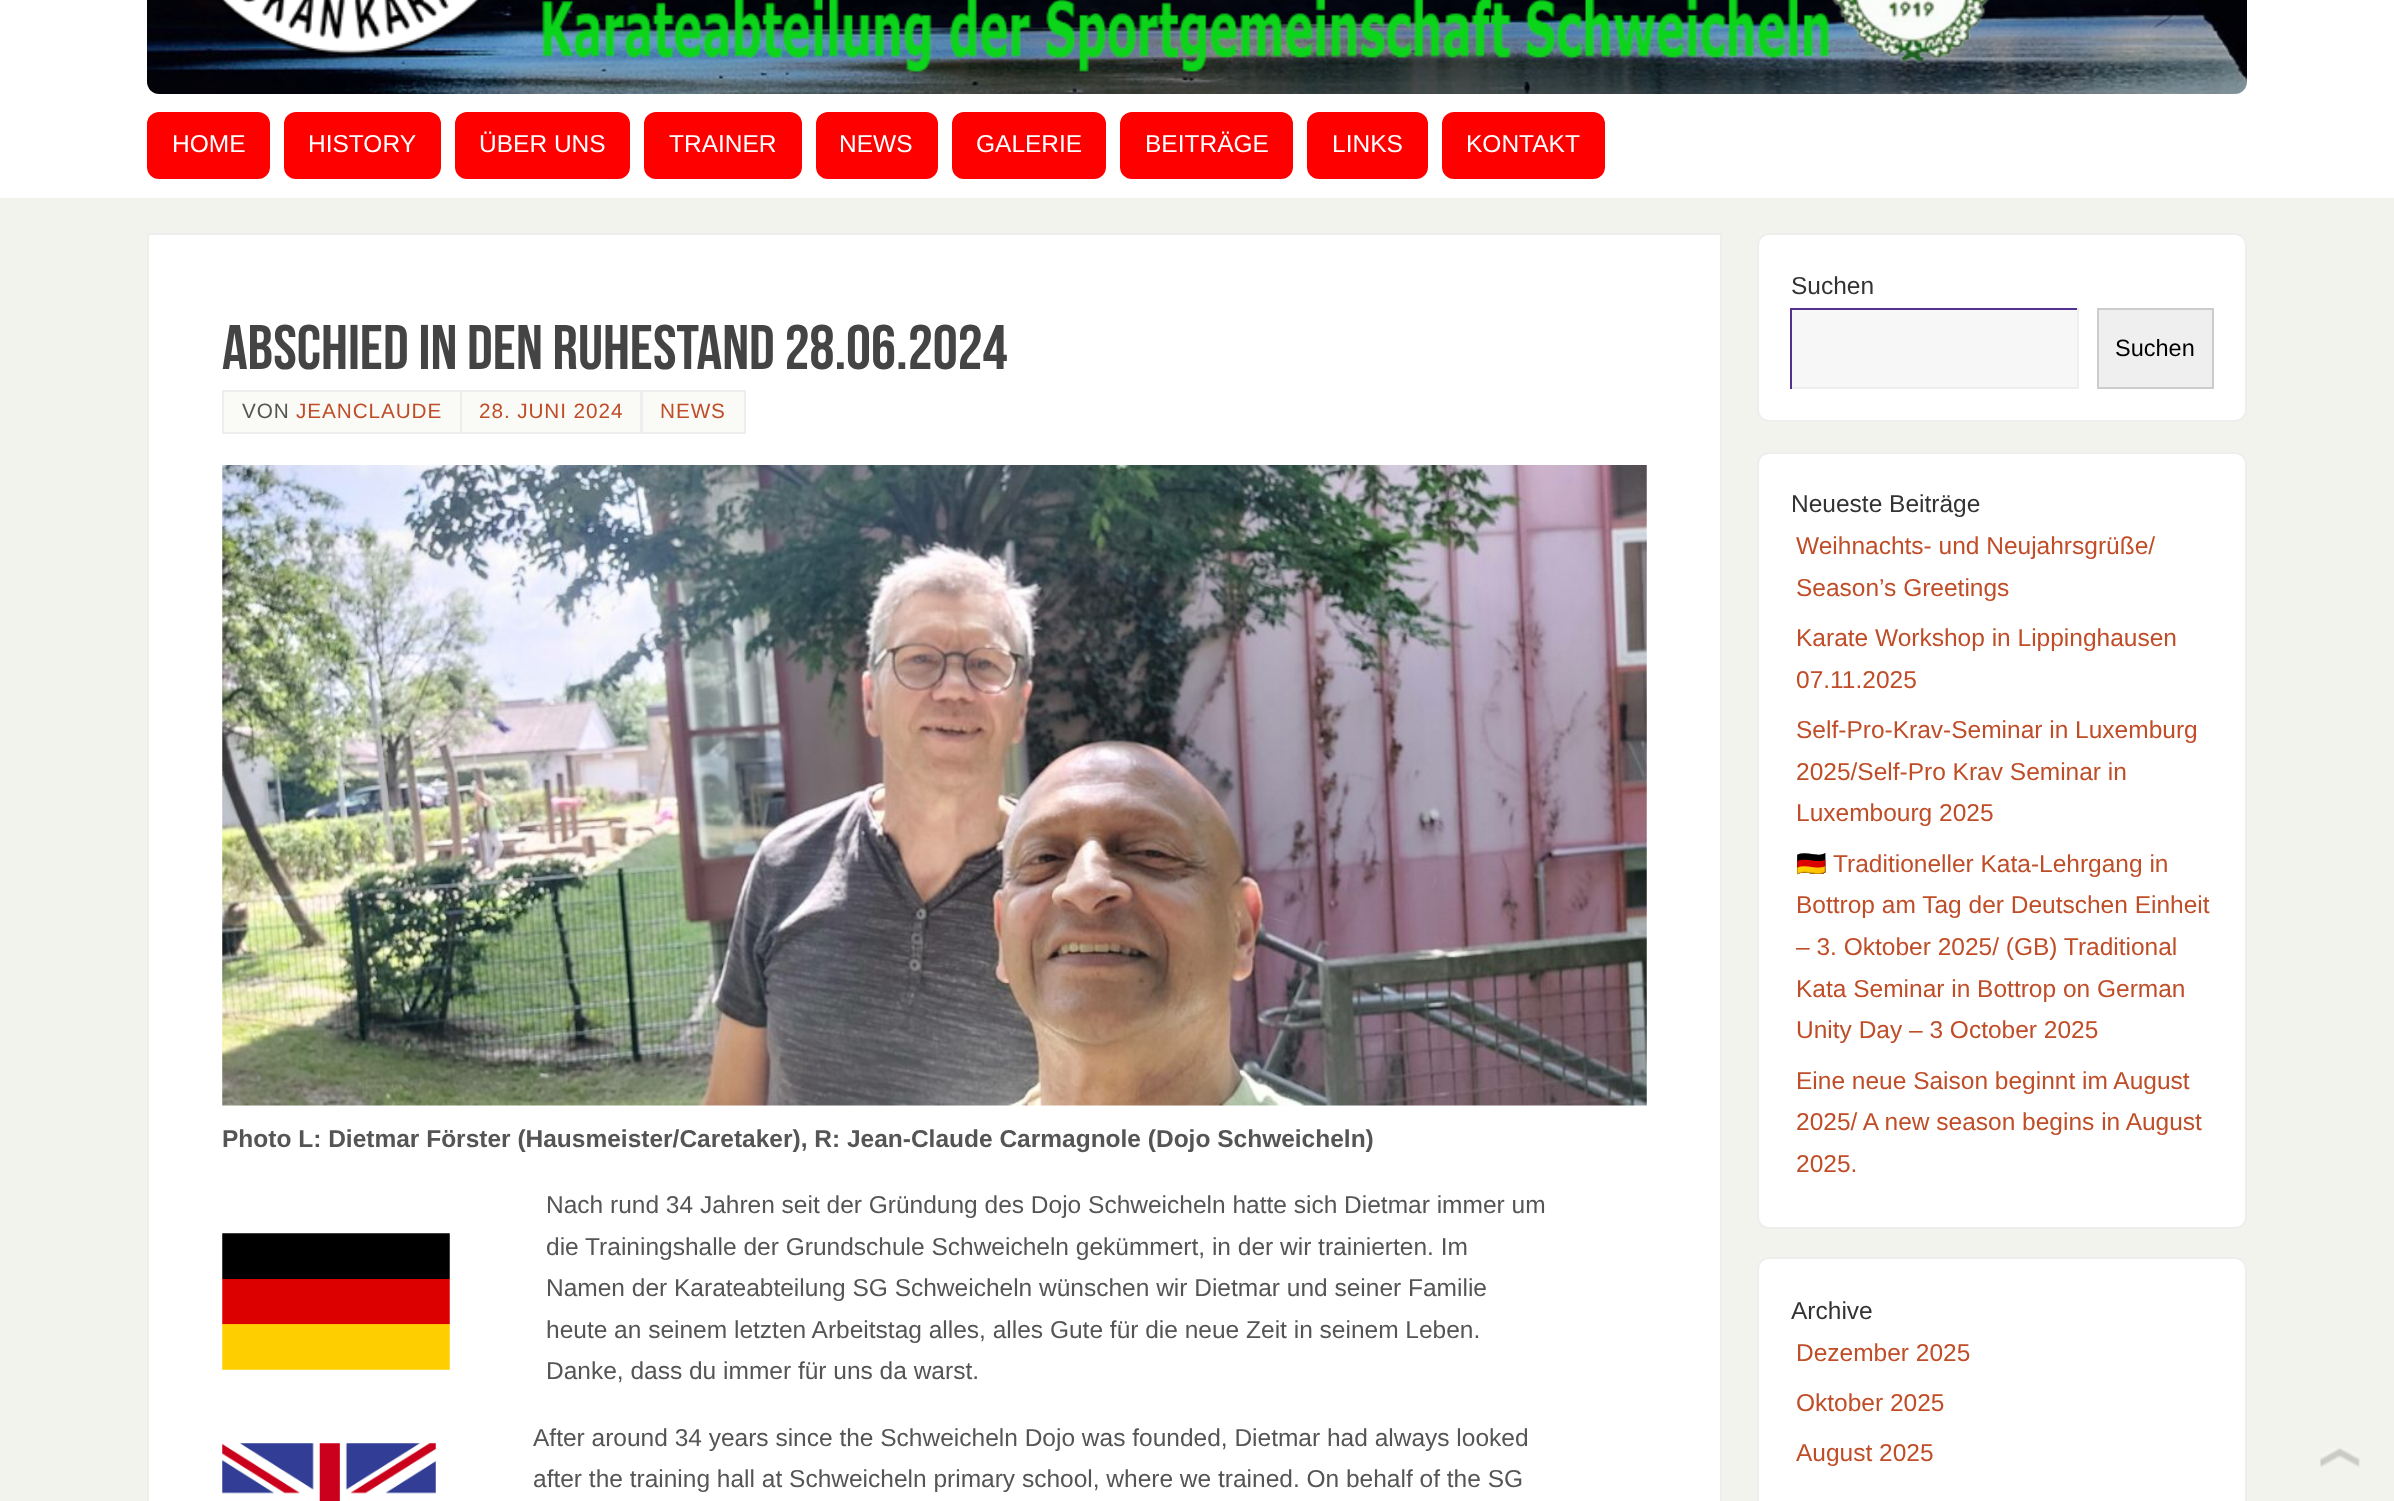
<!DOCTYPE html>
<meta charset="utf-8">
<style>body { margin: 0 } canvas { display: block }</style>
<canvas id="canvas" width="2394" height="1501"></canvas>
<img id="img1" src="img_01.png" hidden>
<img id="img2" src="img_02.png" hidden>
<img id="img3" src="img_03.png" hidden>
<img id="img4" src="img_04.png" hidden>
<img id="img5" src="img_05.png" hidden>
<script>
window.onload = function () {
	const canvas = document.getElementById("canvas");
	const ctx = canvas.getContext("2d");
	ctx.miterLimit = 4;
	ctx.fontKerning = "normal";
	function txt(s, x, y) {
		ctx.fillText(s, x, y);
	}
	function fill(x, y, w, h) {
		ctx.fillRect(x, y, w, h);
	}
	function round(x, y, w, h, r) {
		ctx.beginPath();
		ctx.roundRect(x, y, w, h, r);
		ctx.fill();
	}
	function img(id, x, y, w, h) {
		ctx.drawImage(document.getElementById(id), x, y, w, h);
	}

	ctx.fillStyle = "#F3F3EE";
	fill(0, 0, 2394, 1501);
	ctx.fillStyle = "#FFFFFF";
	fill(0, 0, 2394, 198);
	img("img1", 147, 0, 2100, 94);
	ctx.fillStyle = "#FF0000";
	round(147, 112, 123, 67, 12);
	round(284, 112, 157, 67, 12);
	round(455, 112, 175, 67, 12);
	round(644, 112, 158, 67, 12);
	round(816, 112, 122, 67, 12);
	round(952, 112, 154, 67, 12);
	round(1120, 112, 173, 67, 12);
	round(1307, 112, 121, 67, 12);
	round(1442, 112, 163, 67, 12);
	ctx.fillStyle = "#FFFFFF";
	ctx.beginPath();
	ctx.rect(148, 234, 1573, 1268);
	ctx.fill();
	ctx.strokeStyle = "#EEEEEE";
	ctx.lineWidth = 2;
	ctx.stroke();
	ctx.fillStyle = "#FAFAF7";
	ctx.beginPath();
	ctx.rect(223, 391, 238, 42);
	ctx.fill();
	ctx.stroke();
	ctx.beginPath();
	ctx.rect(461, 391, 180, 42);
	ctx.fill();
	ctx.stroke();
	ctx.beginPath();
	ctx.rect(642, 391, 103, 42);
	ctx.fill();
	ctx.stroke();
	img("img2", 222, 465, 1425, 641);
	img("img3", 222, 1233, 228, 137);
	img("img4", 222, 1443, 214, 58);
	ctx.fillStyle = "#FFFFFF";
	ctx.beginPath();
	ctx.roundRect(1758, 234, 488, 187, 11);
	ctx.fill();
	ctx.stroke();
	ctx.fillStyle = "#F7F7F7";
	fill(1792, 310, 285, 77);
	ctx.fillStyle = "#53328F";
	fill(1790, 308, 289, 2);
	ctx.fillStyle = "#EEEEEE";
	fill(2077, 308, 2, 81);
	fill(1790, 387, 289, 2);
	ctx.fillStyle = "#53328F";
	fill(1790, 308, 2, 81);
	ctx.fillStyle = "#EFEFEF";
	ctx.beginPath();
	ctx.rect(2098, 309, 115, 79);
	ctx.fill();
	ctx.strokeStyle = "#CCCCCC";
	ctx.stroke();
	ctx.fillStyle = "#FFFFFF";
	ctx.beginPath();
	ctx.roundRect(1758, 453, 488, 775, 11);
	ctx.fill();
	ctx.strokeStyle = "#EEEEEE";
	ctx.stroke();
	ctx.beginPath();
	ctx.roundRect(1758, 1258, 488, 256, 11);
	ctx.fill();
	ctx.stroke();
	img("img5", 2320, 1448, 40, 19);
	ctx.font = "24.5px Liberation Sans";
	txt("HOME", 172, 152);
	txt("HISTORY", 308, 152);
	txt("ÜBER UNS", 479, 152);
	txt("TRAINER", 669, 152);
	txt("NEWS", 839, 152);
	txt("GALERIE", 976, 152);
	txt("BEITRÄGE", 1145, 152);
	txt("LINKS", 1332, 152);
	txt("KONTAKT", 1466, 152);
	ctx.font = "63px Bebas Neue";
	ctx.fillStyle = "#444444";
	txt("Abschied in den Ruhestand 28.06.2024", 222, 369);
	ctx.letterSpacing = "0.9px";
	ctx.font = "20.75px Liberation Sans";
	ctx.fillStyle = "#555555";
	txt("VON", 242, 418);
	ctx.fillStyle = "#BF4D28";
	txt("JEANCLAUDE", 296, 418);
	txt("28. JUNI 2024", 479, 418);
	txt("NEWS", 660, 418);
	ctx.letterSpacing = "0px";
	ctx.font = "bold 24.5px Liberation Sans";
	ctx.fillStyle = "#555555";
	txt("Photo L: Dietmar Förster (Hausmeister/Caretaker), R: Jean-Claude Carmagnole (Dojo Schweicheln)", 222, 1147);
	ctx.font = "24.5px Liberation Sans";
	txt("Nach rund 34 Jahren seit der Gründung des Dojo Schweicheln hatte sich Dietmar immer um", 546, 1213);
	txt("die Trainingshalle der Grundschule Schweicheln gekümmert, in der wir trainierten. Im", 546, 1255);
	txt("Namen der Karateabteilung SG Schweicheln wünschen wir Dietmar und seiner Familie", 546, 1296);
	txt("heute an seinem letzten Arbeitstag alles, alles Gute für die neue Zeit in seinem Leben.", 546, 1338);
	txt("Danke, dass du immer für uns da warst.", 546, 1379);
	txt("After around 34 years since the Schweicheln Dojo was founded, Dietmar had always looked", 533, 1446);
	txt("after the training hall at Schweicheln primary school, where we trained. On behalf of the SG", 533, 1487);
	ctx.fillStyle = "#333333";
	txt("Suchen", 1791, 294);
	ctx.font = "23.5px Liberation Sans";
	ctx.fillStyle = "#000000";
	txt("Suchen", 2115, 356);
	ctx.font = "24.5px Liberation Sans";
	ctx.fillStyle = "#333333";
	txt("Neueste Beiträge", 1791, 512);
	ctx.fillStyle = "#BF4D28";
	txt("Weihnachts- und Neujahrsgrüße/", 1796, 554);
	txt("Season’s Greetings", 1796, 596);
	txt("Karate Workshop in Lippinghausen", 1796, 646);
	txt("07.11.2025", 1796, 688);
	txt("Self-Pro-Krav-Seminar in Luxemburg", 1796, 738);
	txt("2025/Self-Pro Krav Seminar in", 1796, 780);
	txt("Luxembourg 2025", 1796, 821);
	ctx.font = "24.5px Noto Color Emoji";
	txt("🇩🇪", 1796, 872);
	ctx.font = "24.5px Liberation Sans";
	txt("Traditioneller Kata-Lehrgang in", 1833, 872);
	txt("Bottrop am Tag der Deutschen Einheit", 1796, 913);
	txt("– 3. Oktober 2025/ (GB) Traditional", 1796, 955);
	txt("Kata Seminar in Bottrop on German", 1796, 997);
	txt("Unity Day – 3 October 2025", 1796, 1038);
	txt("Eine neue Saison beginnt im August", 1796, 1089);
	txt("2025/ A new season begins in August", 1796, 1130);
	txt("2025.", 1796, 1172);
	ctx.fillStyle = "#333333";
	txt("Archive", 1791, 1319);
	ctx.fillStyle = "#BF4D28";
	txt("Dezember 2025", 1796, 1361);
	txt("Oktober 2025", 1796, 1411);
	txt("August 2025", 1796, 1461);
};
</script>
